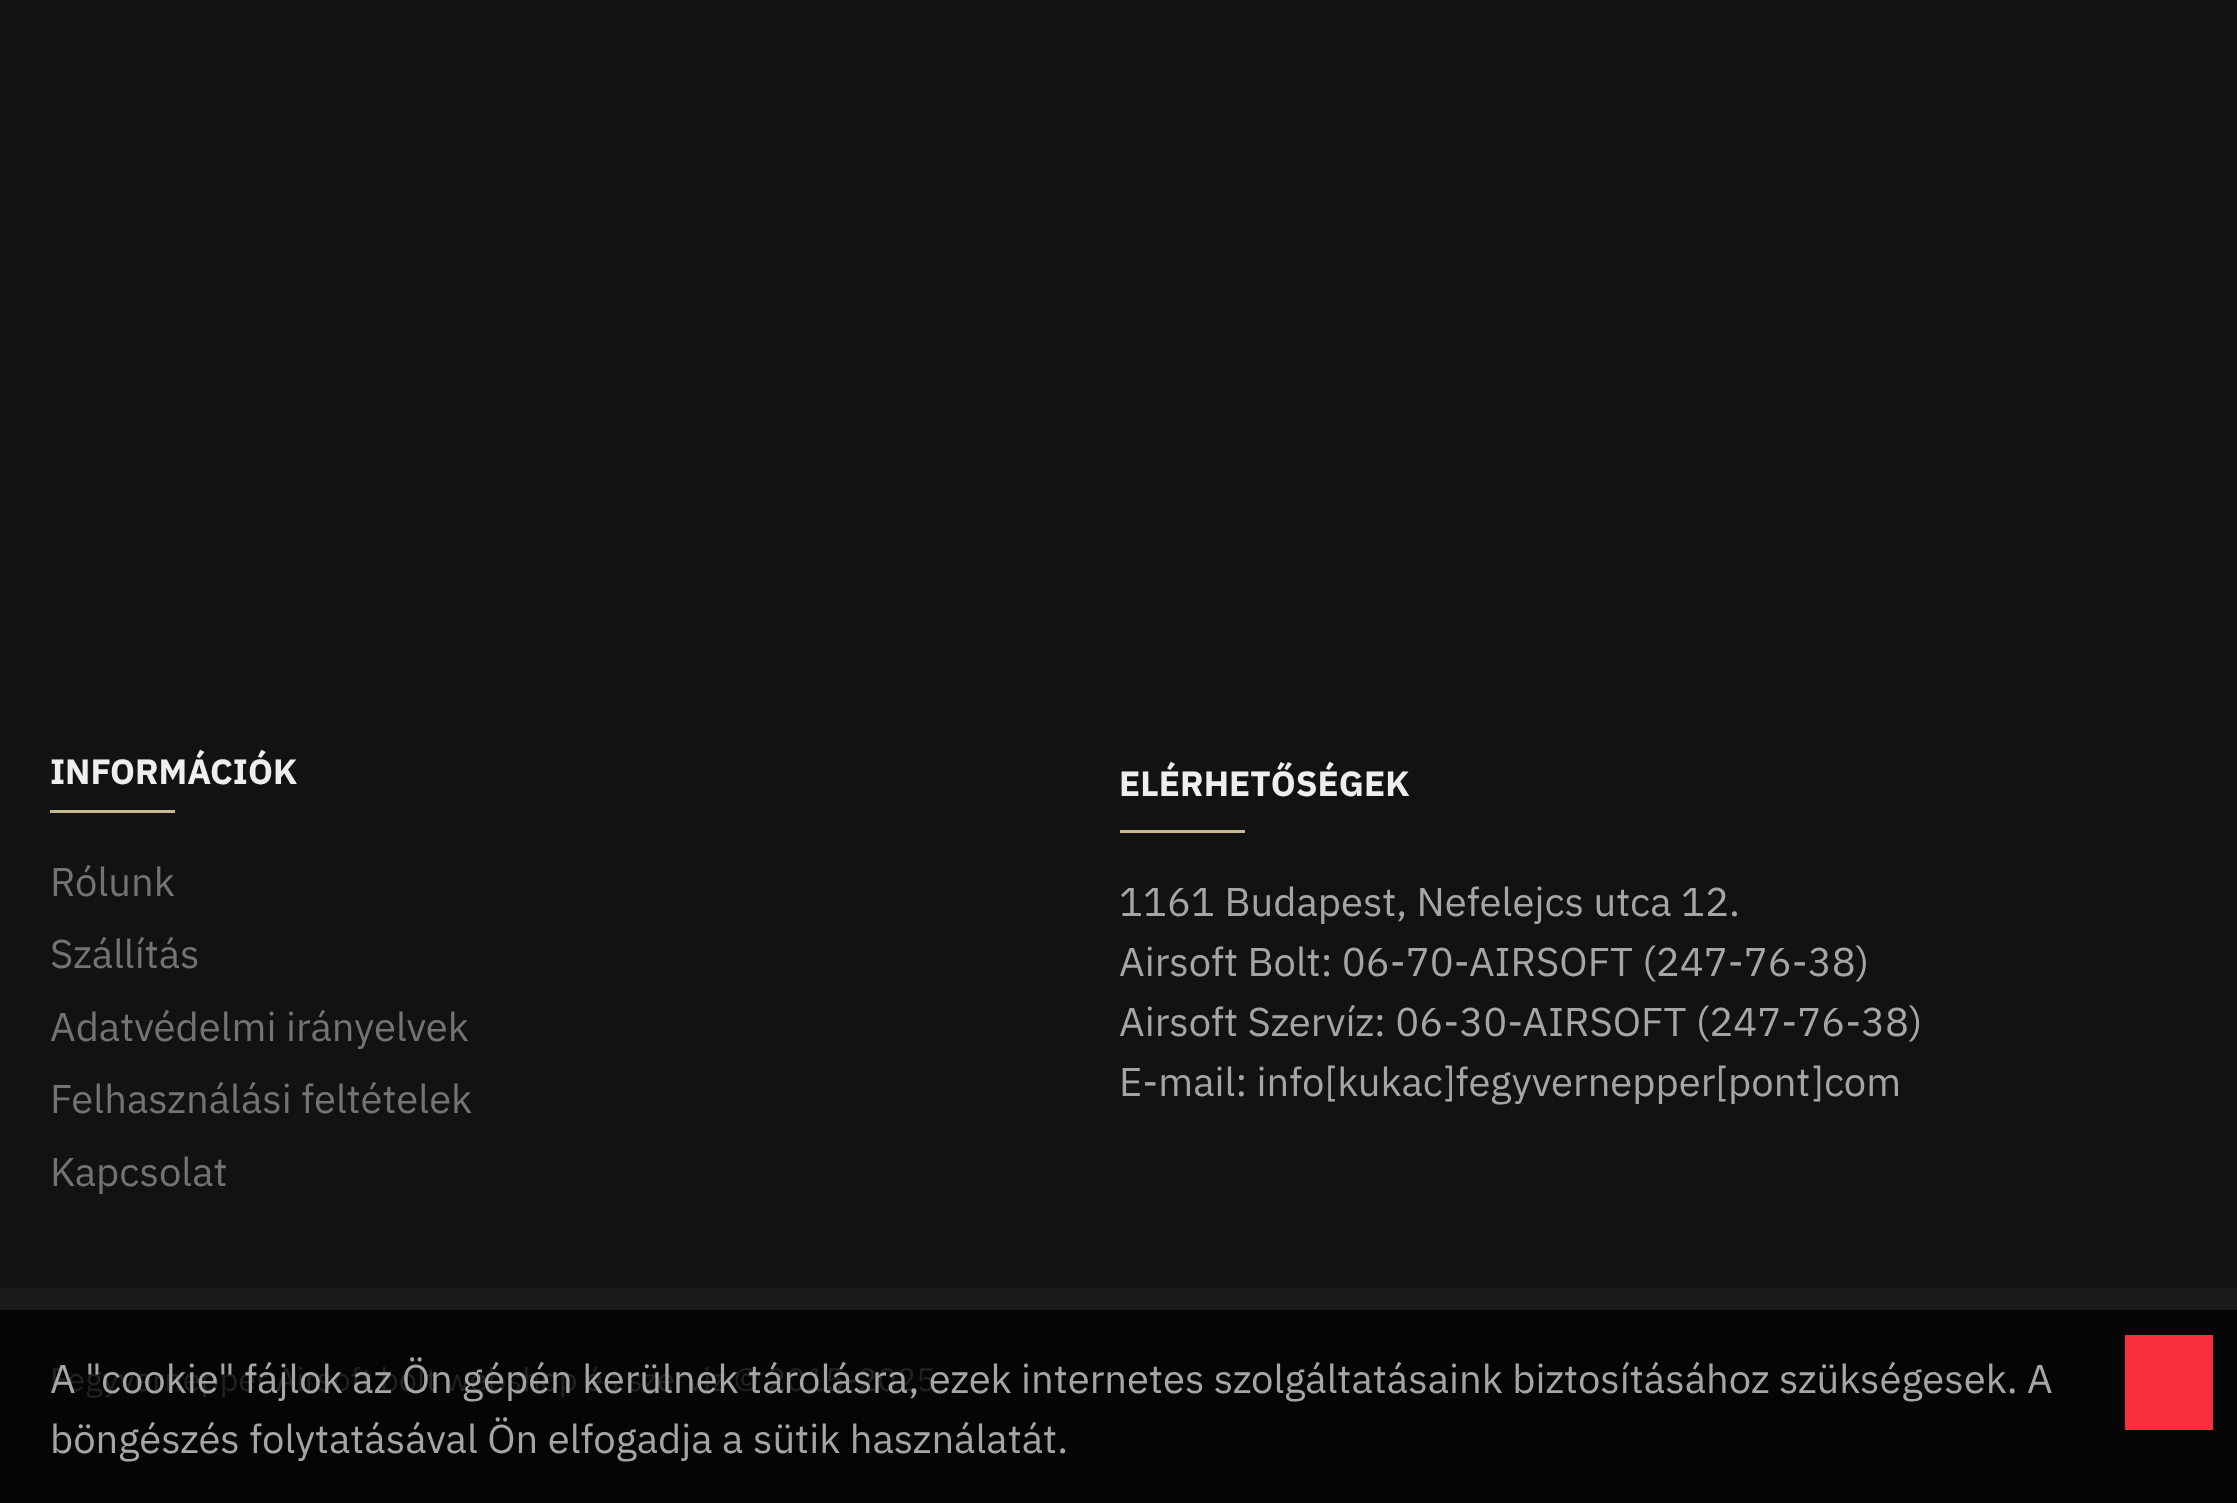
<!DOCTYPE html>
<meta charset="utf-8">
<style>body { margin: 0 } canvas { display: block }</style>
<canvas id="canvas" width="2237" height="1503"></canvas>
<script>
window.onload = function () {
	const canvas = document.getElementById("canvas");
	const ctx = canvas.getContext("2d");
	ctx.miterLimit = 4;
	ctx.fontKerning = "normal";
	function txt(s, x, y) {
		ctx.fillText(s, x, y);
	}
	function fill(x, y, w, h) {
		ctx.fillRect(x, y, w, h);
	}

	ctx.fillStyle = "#121212";
	fill(0, 0, 2237, 1503);
	ctx.fillStyle = "#C7B98F";
	fill(50, 810, 125, 3);
	fill(1120, 830, 125, 3);
	ctx.fillStyle = "#1B1B1B";
	fill(0, 1288, 2237, 22);
	ctx.fillStyle = "#050505";
	fill(0, 1310, 2237, 193);
	ctx.fillStyle = "#F8303D";
	fill(2125, 1335, 88, 95);
	ctx.font = "bold 35px IBM Plex Sans";
	ctx.fillStyle = "#EEEEEE";
	txt("INFORMÁCIÓK", 50, 784);
	ctx.font = "40px IBM Plex Sans";
	ctx.fillStyle = "#767272";
	txt("Rólunk", 50, 896);
	txt("Szállítás", 50, 968);
	txt("Adatvédelmi irányelvek", 50, 1041);
	txt("Felhasználási feltételek", 50, 1113);
	txt("Kapcsolat", 50, 1186);
	ctx.font = "bold 35px IBM Plex Sans";
	ctx.fillStyle = "#EEEEEE";
	txt("ELÉRHETŐSÉGEK", 1119, 796);
	ctx.font = "40px IBM Plex Sans";
	ctx.fillStyle = "#A5A5A5";
	txt("1161 Budapest, Nefelejcs utca 12.", 1119, 916);
	txt("Airsoft Bolt: 06-70-AIRSOFT (247-76-38)", 1119, 976);
	txt("Airsoft Szervíz: 06-30-AIRSOFT (247-76-38)", 1119, 1036);
	txt("E-mail: info[kukac]fegyvernepper[pont]com", 1119, 1096);
	ctx.font = "32.5px IBM Plex Sans";
	ctx.fillStyle = "#212121";
	txt("Fegyvernepper Airsoft bolt webshop és szerviz © 2015-2025", 50, 1391);
	ctx.font = "40px IBM Plex Sans";
	ctx.fillStyle = "#A5A5A5";
	txt("A \"cookie\" fájlok az Ön gépén kerülnek tárolásra, ezek internetes szolgáltatásaink biztosításához szükségesek. A", 50, 1393);
	txt("böngészés folytatásával Ön elfogadja a sütik használatát.", 50, 1453);
};
</script>
